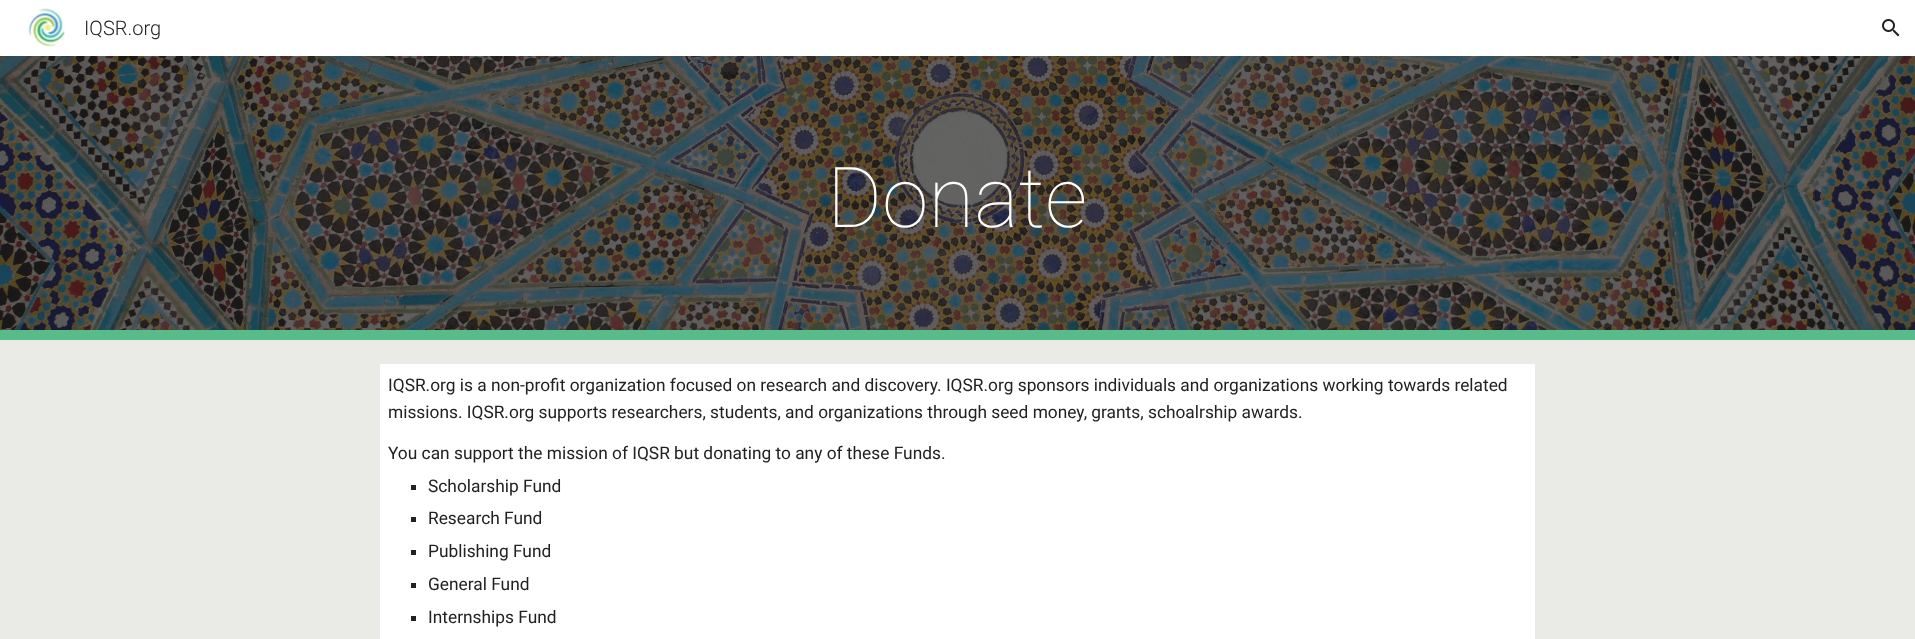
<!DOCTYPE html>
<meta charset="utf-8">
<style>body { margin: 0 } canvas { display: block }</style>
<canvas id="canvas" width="1915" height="639"></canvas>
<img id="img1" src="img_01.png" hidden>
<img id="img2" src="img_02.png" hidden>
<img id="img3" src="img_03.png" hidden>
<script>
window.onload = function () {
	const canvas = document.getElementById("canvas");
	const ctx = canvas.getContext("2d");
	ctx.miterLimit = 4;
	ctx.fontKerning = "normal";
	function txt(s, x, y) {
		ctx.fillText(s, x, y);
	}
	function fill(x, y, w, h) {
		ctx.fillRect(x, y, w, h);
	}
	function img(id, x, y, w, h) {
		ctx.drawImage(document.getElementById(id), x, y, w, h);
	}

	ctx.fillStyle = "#EAEBE6";
	fill(0, 0, 1915, 639);
	ctx.fillStyle = "#FFFFFF";
	fill(0, 0, 1915, 56);
	img("img1", 28, 8, 37, 39);
	img("img2", 1882, 19, 18, 18);
	img("img3", 0, 56, 1915, 274);
	ctx.fillStyle = "#57BB8A";
	fill(0, 330, 1915, 10);
	ctx.fillStyle = "#FFFFFF";
	fill(380, 364, 1155, 275);
	ctx.fillStyle = "#212121";
	fill(411, 485, 5, 5);
	fill(411, 517, 5, 5);
	fill(411, 550, 5, 5);
	fill(411, 583, 5, 5);
	fill(411, 616, 5, 5);
	ctx.font = "300 20px Roboto";
	txt("IQSR.org", 84, 35);
	ctx.font = "100 84px Roboto";
	ctx.fillStyle = "#FFFFFF";
	txt("Donate", 827, 227);
	ctx.font = "17.33px Roboto";
	ctx.fillStyle = "#212121";
	txt("IQSR.org is a non-profit organization focused on research and discovery. IQSR.org sponsors individuals and organizations working towards related", 388, 391);
	txt("missions. IQSR.org supports researchers, students, and organizations through seed money, grants, schoalrship awards.", 388, 418);
	txt("You can support the mission of IQSR but donating to any of these Funds.", 388, 459);
	txt("Scholarship Fund", 428, 492);
	txt("Research Fund", 428, 524);
	txt("Publishing Fund", 428, 557);
	txt("General Fund", 428, 590);
	txt("Internships Fund", 428, 623);
};
</script>
